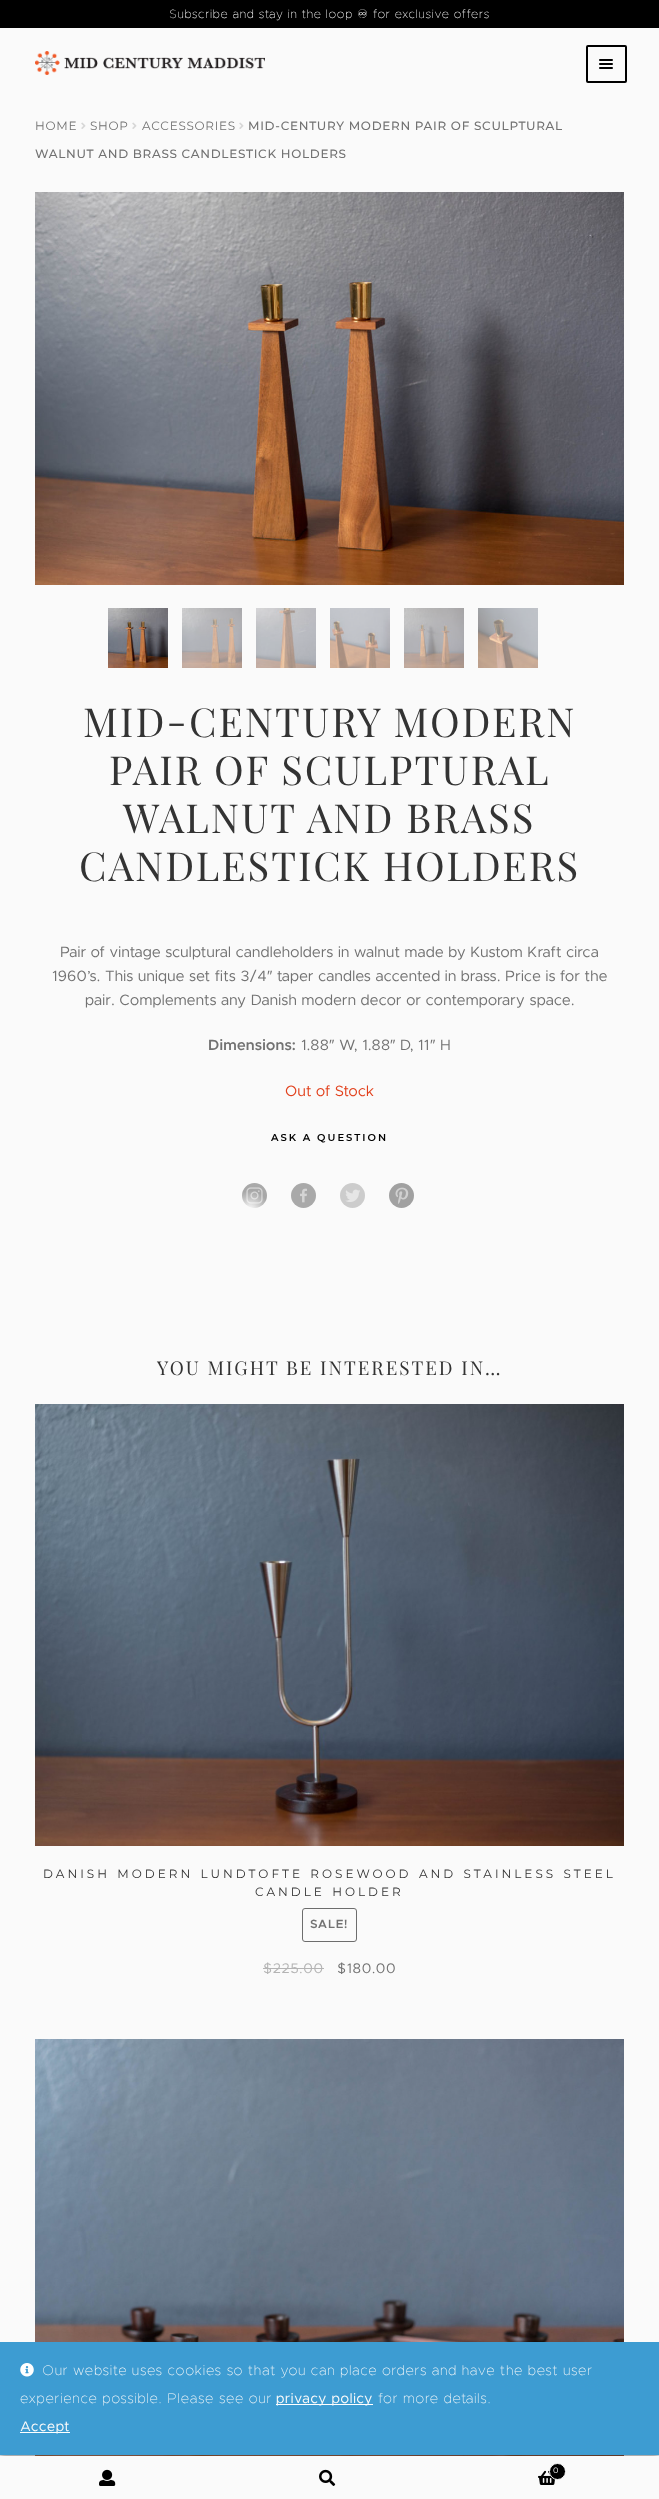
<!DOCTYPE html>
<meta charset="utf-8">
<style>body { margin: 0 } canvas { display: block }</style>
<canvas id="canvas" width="659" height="2499"></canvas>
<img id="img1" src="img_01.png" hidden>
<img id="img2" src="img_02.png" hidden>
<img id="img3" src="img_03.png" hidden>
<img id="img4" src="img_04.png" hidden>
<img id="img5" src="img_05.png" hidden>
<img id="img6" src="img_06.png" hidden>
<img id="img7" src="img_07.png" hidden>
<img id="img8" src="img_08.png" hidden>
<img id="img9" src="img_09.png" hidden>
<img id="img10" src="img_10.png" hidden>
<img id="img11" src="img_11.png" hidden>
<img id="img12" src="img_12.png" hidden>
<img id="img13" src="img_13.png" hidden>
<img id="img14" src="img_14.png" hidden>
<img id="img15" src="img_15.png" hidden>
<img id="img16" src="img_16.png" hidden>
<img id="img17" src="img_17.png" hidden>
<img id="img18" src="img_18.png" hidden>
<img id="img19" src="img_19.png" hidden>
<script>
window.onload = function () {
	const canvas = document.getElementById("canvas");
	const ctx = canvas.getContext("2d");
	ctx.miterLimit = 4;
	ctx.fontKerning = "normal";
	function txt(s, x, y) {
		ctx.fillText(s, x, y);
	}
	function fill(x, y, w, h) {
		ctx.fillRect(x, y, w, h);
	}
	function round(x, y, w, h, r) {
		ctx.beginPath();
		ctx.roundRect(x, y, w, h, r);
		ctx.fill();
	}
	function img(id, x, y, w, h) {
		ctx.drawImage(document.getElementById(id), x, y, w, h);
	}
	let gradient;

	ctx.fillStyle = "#FAFAFA";
	fill(0, 0, 659, 2499);
	ctx.fillStyle = "#000000";
	fill(0, 0, 659, 28);
	img("img1", 35, 51, 230, 24);
	ctx.beginPath();
	ctx.roundRect(587, 46, 39, 36, 1);
	ctx.strokeStyle = "#000000";
	ctx.lineWidth = 2;
	ctx.stroke();
	round(599, 59, 14, 2, 1);
	round(599, 63, 14, 2, 1);
	round(599, 67, 14, 2, 1);
	img("img2", 81, 122, 5, 7);
	img("img2", 132, 122, 5, 7);
	img("img2", 239, 122, 5, 7);
	img("img3", 35, 192, 589, 393);
	img("img4", 108, 608, 60, 60);
	img("img5", 182, 608, 60, 60);
	img("img6", 256, 608, 60, 60);
	img("img7", 330, 608, 60, 60);
	img("img8", 404, 608, 60, 60);
	img("img9", 478, 608, 60, 60);
	gradient = ctx.createRadialGradient(250, 1210, 0, 250, 1210, 32);
	gradient.addColorStop(0, "#F5F5F5");
	gradient.addColorStop(0.05, "#F5F5F5");
	gradient.addColorStop(0.45, "#BBBBBB");
	gradient.addColorStop(0.6, "#A7A7A7");
	gradient.addColorStop(0.9, "#AAAAAA");
	ctx.fillStyle = gradient;
	ctx.beginPath();
	ctx.arc(254.5, 1195.5, 12.5, 0, Math.PI * 2);
	ctx.fill();
	img("img10", 246, 1187, 17, 17);
	ctx.fillStyle = "#A9A9A9";
	ctx.beginPath();
	ctx.arc(303.5, 1195.5, 12.5, 0, Math.PI * 2);
	ctx.fill();
	img("img11", 300, 1188, 7, 15);
	ctx.fillStyle = "#CCCCCC";
	ctx.beginPath();
	ctx.arc(352.5, 1195.5, 12.5, 0, Math.PI * 2);
	ctx.fill();
	img("img12", 345, 1189, 15, 13);
	ctx.fillStyle = "#A1A1A1";
	ctx.beginPath();
	ctx.arc(401.5, 1195.5, 12.5, 0, Math.PI * 2);
	ctx.fill();
	img("img13", 395, 1187, 14, 17);
	img("img14", 35, 1404, 589, 442);
	ctx.beginPath();
	ctx.roundRect(302.5, 1908.5, 54, 33, 2.5);
	ctx.strokeStyle = "#6D6D6D";
	ctx.lineWidth = 1;
	ctx.stroke();
	ctx.fillStyle = "#B4B4B4";
	fill(263, 1968, 61, 1);
	img("img15", 35, 2039, 589, 417);
	ctx.fillStyle = "rgba(0, 0, 0, 0.7)";
	ctx.filter = "blur(3px)";
	ctx.beginPath();
	ctx.rect(0, 2456, 659, 43);
	ctx.fill();
	ctx.filter = "none";
	ctx.fillStyle = "#FAFAFA";
	fill(0, 2456, 659, 1);
	fill(0, 2457, 659, 42);
	img("img16", 99, 2469, 17, 17);
	img("img17", 319, 2469, 17, 17);
	img("img18", 538, 2470, 17, 15);
	ctx.fillStyle = "#000000";
	ctx.beginPath();
	ctx.arc(557.5, 2471.5, 8, 0, Math.PI * 2);
	ctx.fill();
	ctx.strokeStyle = "#FAFAFA";
	ctx.stroke();
	ctx.fillStyle = "#3D9CD2";
	fill(0, 2342, 659, 113);
	img("img19", 20, 2363, 14, 14);
	ctx.fillStyle = "#FFFFFF";
	fill(276, 2404, 97, 1);
	fill(20, 2432, 50, 1);
	ctx.letterSpacing = "0.7px";
	ctx.font = "100 12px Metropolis";
	ctx.fillStyle = "#FAFAFA";
	txt("Subscribe and stay in the loop", 169, 18);
	ctx.font = "12px DejaVu Sans";
	txt("♾", 357, 18);
	ctx.font = "100 12px Metropolis";
	txt("for exclusive offers", 373, 18);
	ctx.font = "12px Montserrat";
	ctx.fillStyle = "#727272";
	txt("HOME", 35, 130);
	txt("SHOP", 90, 130);
	txt("ACCESSORIES", 142, 130);
	ctx.font = "500 12px Montserrat";
	txt("MID-CENTURY MODERN PAIR OF SCULPTURAL", 248, 130);
	txt("WALNUT AND BRASS CANDLESTICK HOLDERS", 35, 158);
	ctx.letterSpacing = "2px";
	ctx.font = "40px Playfair Display SC";
	ctx.fillStyle = "#333333";
	txt("MID-CENTURY MODERN", 83, 737);
	txt("PAIR OF SCULPTURAL", 109, 785);
	txt("WALNUT AND BRASS", 123, 833);
	txt("CANDLESTICK HOLDERS", 79, 881);
	ctx.letterSpacing = "0.3px";
	ctx.font = "15px Metropolis";
	ctx.fillStyle = "#727272";
	txt("Pair of vintage sculptural candleholders in walnut made by Kustom Kraft circa", 60, 957);
	txt("1960’s. This unique set fits 3/4", 52, 981);
	ctx.font = "15px Liberation Sans";
	txt("″", 267, 981);
	ctx.font = "15px Metropolis";
	txt("taper candles accented in brass. Price is for the", 277, 981);
	txt("pair. Complements any Danish modern decor or contemporary space.", 85, 1005);
	ctx.font = "600 15px Metropolis";
	txt("Dimensions:", 208, 1050);
	ctx.font = "15px Metropolis";
	txt("1.88", 301, 1050);
	ctx.font = "15px Liberation Sans";
	txt("″", 329, 1050);
	ctx.font = "15px Metropolis";
	txt("W, 1.88", 339, 1050);
	ctx.font = "15px Liberation Sans";
	txt("″", 390, 1050);
	ctx.font = "15px Metropolis";
	txt("D, 11", 400, 1050);
	ctx.font = "15px Liberation Sans";
	txt("″", 430, 1050);
	ctx.font = "15px Metropolis";
	txt("H", 440, 1050);
	ctx.fillStyle = "#E2401C";
	txt("Out of Stock", 285, 1096);
	ctx.letterSpacing = "2px";
	ctx.font = "600 10px Montserrat";
	ctx.fillStyle = "#000000";
	txt("ASK A QUESTION", 271, 1141);
	ctx.font = "19px Playfair Display SC";
	ctx.fillStyle = "#333333";
	txt("YOU MIGHT BE INTERESTED IN…", 157, 1375);
	ctx.letterSpacing = "3px";
	ctx.wordSpacing = "1.25px";
	ctx.font = "12px Montserrat";
	txt("DANISH MODERN LUNDTOFTE ROSEWOOD AND STAINLESS STEEL", 43, 1878);
	txt("CANDLE HOLDER", 255, 1896);
	ctx.letterSpacing = "0.7px";
	ctx.wordSpacing = "0px";
	ctx.font = "600 12px Metropolis";
	ctx.fillStyle = "#727272";
	txt("SALE!", 310, 1928);
	ctx.font = "14px Metropolis";
	ctx.fillStyle = "#B4B4B4";
	txt("$225.00", 263, 1973);
	ctx.fillStyle = "#727272";
	txt("$180.00", 337, 1973);
	ctx.letterSpacing = "4px";
	ctx.font = "8px Metropolis";
	ctx.fillStyle = "#FAFAFA";
	txt("0", 553, 2473);
	ctx.letterSpacing = "0.7px";
	ctx.font = "100 14px Metropolis";
	txt("Our website uses cookies so that you can place orders and have the best user", 42, 2375);
	txt("experience possible. Please see our", 20, 2403);
	ctx.font = "14px Metropolis";
	txt("privacy policy", 276, 2403);
	ctx.font = "100 14px Metropolis";
	txt("for more details.", 378, 2403);
	ctx.font = "14px Metropolis";
	txt("Accept", 20, 2431);
};
</script>
